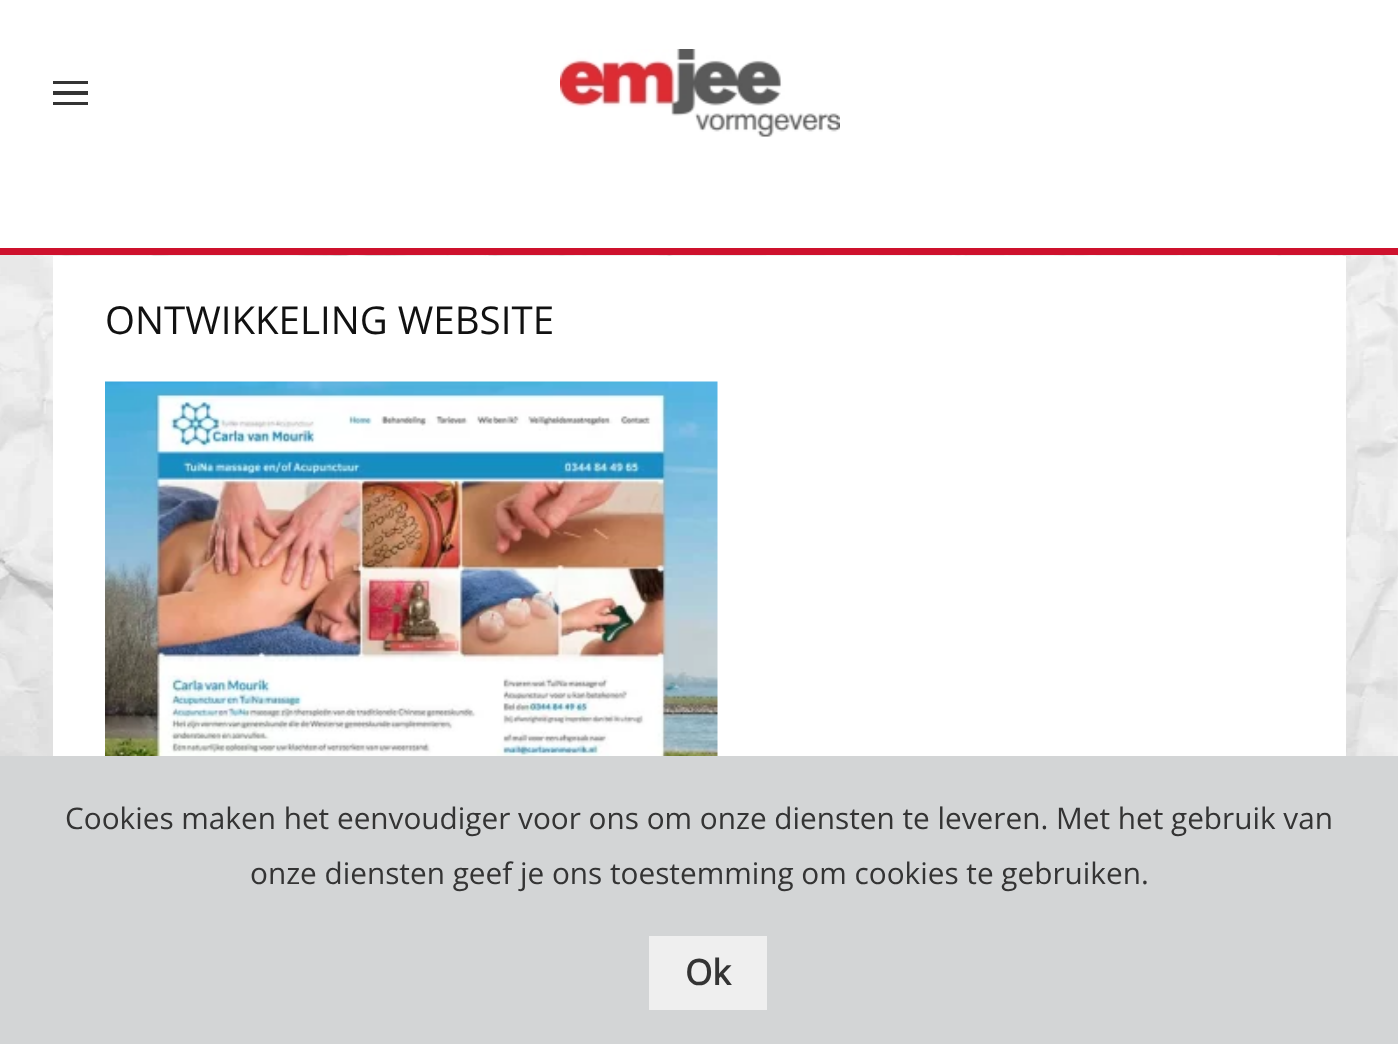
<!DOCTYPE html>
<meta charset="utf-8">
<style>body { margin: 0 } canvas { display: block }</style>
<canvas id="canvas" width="1398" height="1044"></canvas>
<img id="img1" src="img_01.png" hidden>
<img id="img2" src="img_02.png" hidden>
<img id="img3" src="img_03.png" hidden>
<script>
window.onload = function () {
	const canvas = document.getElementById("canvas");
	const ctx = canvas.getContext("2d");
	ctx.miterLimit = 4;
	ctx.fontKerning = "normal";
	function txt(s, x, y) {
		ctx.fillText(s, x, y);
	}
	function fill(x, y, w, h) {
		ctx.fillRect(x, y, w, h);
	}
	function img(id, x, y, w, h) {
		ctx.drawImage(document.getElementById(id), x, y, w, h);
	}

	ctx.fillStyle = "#FFFFFF";
	fill(0, 0, 1398, 1044);
	ctx.fillStyle = "#343434";
	fill(53, 81, 35, 3);
	fill(53, 91, 35, 4);
	fill(53, 102, 35, 3);
	img("img1", 560, 49, 280, 88);
	ctx.fillStyle = "#CE112D";
	fill(0, 248, 1398, 8);
	img("img2", 0, 255, 1398, 501);
	ctx.fillStyle = "#FFFFFF";
	fill(53, 256, 1293, 500);
	img("img3", 105, 381, 613, 375);
	ctx.fillStyle = "#D3D5D6";
	fill(0, 756, 1398, 288);
	ctx.fillStyle = "#EFEFEF";
	fill(649, 936, 118, 74);
	ctx.font = "38.5px Open Sans";
	ctx.fillStyle = "#111111";
	txt("ONTWIKKELING WEBSITE", 105, 334);
	ctx.font = "29.75px Open Sans";
	ctx.fillStyle = "#343434";
	txt("Cookies maken het eenvoudiger voor ons om onze diensten te leveren. Met het gebruik van", 65, 829);
	txt("onze diensten geef je ons toestemming om cookies te gebruiken.", 250, 884);
	ctx.font = "bold 35px Open Sans";
	txt("Ok", 685, 985);
};
</script>
